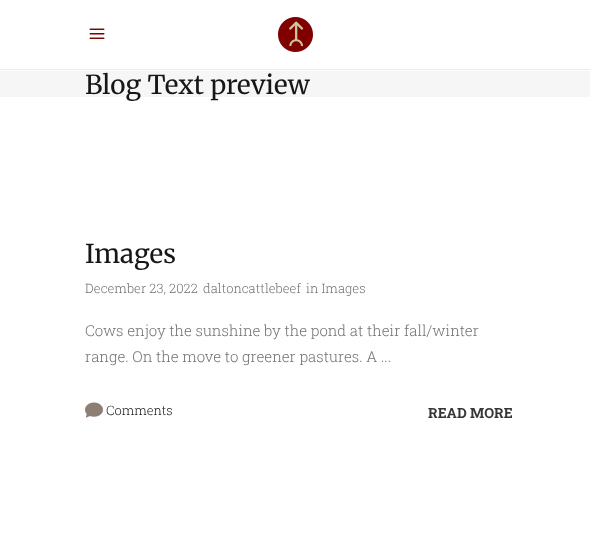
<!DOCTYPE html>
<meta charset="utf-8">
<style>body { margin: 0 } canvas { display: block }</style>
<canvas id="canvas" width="590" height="559"></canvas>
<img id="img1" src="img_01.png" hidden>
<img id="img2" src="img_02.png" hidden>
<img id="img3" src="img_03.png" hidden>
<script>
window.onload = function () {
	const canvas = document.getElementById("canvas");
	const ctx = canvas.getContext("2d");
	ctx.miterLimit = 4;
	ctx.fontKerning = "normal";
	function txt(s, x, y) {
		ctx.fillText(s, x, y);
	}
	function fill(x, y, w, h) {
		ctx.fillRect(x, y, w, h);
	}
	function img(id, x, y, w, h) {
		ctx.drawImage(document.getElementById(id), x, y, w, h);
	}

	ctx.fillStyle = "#FFFFFF";
	fill(0, 0, 590, 559);
	ctx.fillStyle = "#EDEBE9";
	fill(0, 69, 590, 1);
	img("img1", 89, 28, 16, 11);
	img("img2", 278, 17, 35, 35);
	ctx.fillStyle = "#F6F6F6";
	fill(0, 71, 590, 26);
	img("img3", 85, 402, 18, 16);
	ctx.font = "26px Merriweather";
	ctx.fillStyle = "#171717";
	txt("Blog Text preview", 85, 94);
	txt("Images", 85, 263);
	ctx.font = "300 13px Roboto Slab";
	ctx.fillStyle = "#737373";
	txt("December 23, 2022", 85, 293);
	txt("daltoncattlebeef", 203, 293);
	txt("in Images", 306, 293);
	ctx.font = "300 15px Roboto Slab";
	txt("Cows enjoy the sunshine by the pond at their fall/winter", 85, 336);
	txt("range. On the move to greener pastures. A ...", 85, 362);
	ctx.font = "300 13px Roboto Slab";
	ctx.fillStyle = "#171717";
	txt("Comments", 106, 415);
	ctx.font = "bold 14px Roboto Slab";
	ctx.fillStyle = "#363636";
	txt("READ MORE", 428, 418);
};
</script>
